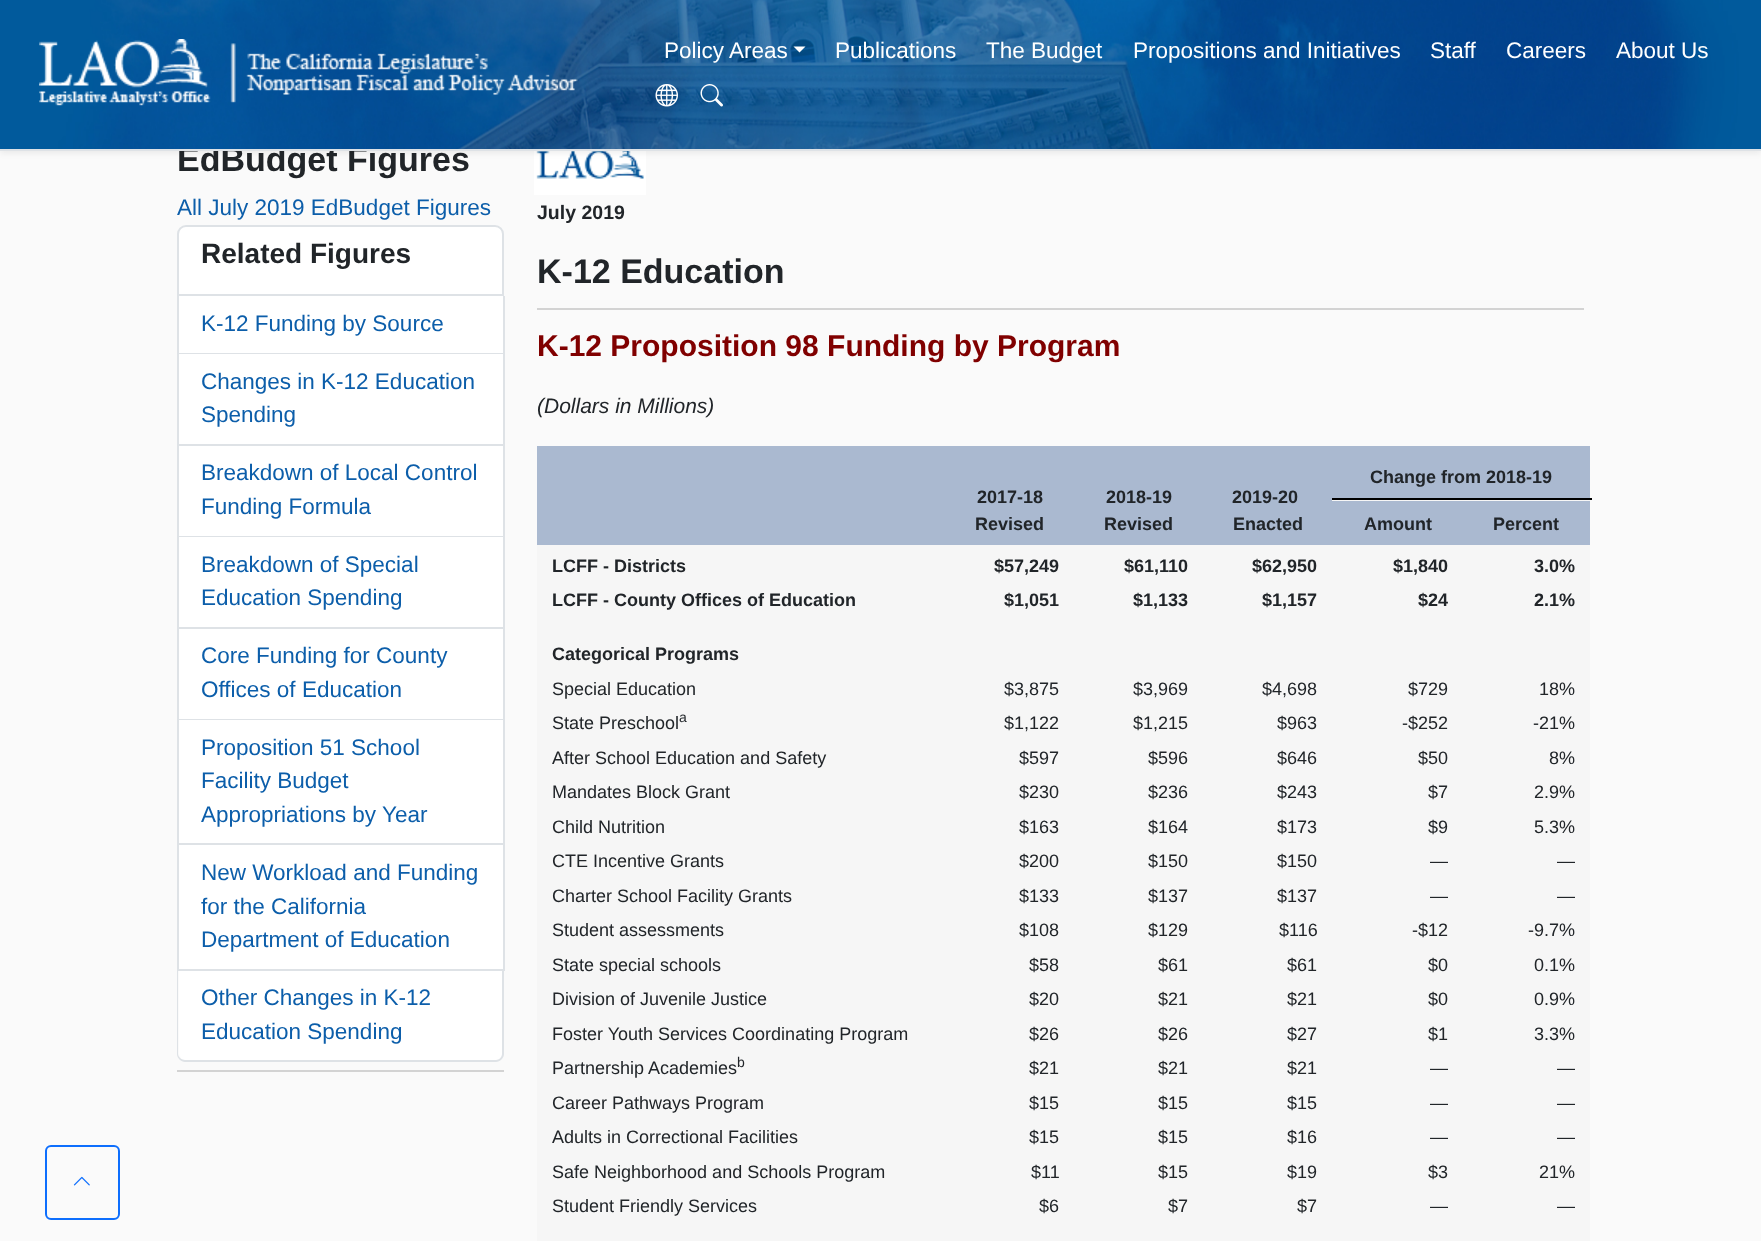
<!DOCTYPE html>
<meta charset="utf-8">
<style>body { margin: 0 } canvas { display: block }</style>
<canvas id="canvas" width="1761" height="1241"></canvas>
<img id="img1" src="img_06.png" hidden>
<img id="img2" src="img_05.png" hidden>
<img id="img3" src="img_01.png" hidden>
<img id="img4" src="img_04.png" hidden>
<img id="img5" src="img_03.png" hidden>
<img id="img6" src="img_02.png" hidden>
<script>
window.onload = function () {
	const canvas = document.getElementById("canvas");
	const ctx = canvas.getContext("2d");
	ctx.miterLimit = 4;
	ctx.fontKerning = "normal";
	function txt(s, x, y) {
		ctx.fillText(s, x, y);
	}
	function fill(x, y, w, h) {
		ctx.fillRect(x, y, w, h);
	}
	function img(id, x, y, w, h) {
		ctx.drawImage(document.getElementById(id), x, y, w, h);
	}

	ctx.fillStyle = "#FAFAFA";
	fill(0, 0, 1761, 1241);
	img("img1", 534, 151, 112, 44);
	ctx.fillStyle = "rgba(0, 0, 0, 0.07)";
	ctx.filter = "blur(3px)";
	ctx.beginPath();
	ctx.rect(0, 3, 1761, 150);
	ctx.fill();
	ctx.filter = "none";
	ctx.beginPath();
	ctx.roundRect(46, 1146, 73, 73, 5);
	ctx.strokeStyle = "#0D6EFD";
	ctx.lineWidth = 2;
	ctx.stroke();
	img("img2", 73, 1176, 17, 10);
	ctx.fillStyle = "#D3D3D3";
	fill(177, 1070, 327, 2);
	ctx.fillStyle = "#FFFFFF";
	ctx.beginPath();
	ctx.roundRect(178, 226, 325, 69, [8, 8, 0, 0]);
	ctx.fill();
	ctx.strokeStyle = "#DEE2E6";
	ctx.stroke();
	fill(179, 296, 324, 57);
	ctx.fillStyle = "#DEE2E6";
	fill(503, 296, 2, 675);
	fill(177, 353, 327, 1);
	fill(177, 296, 2, 58);
	ctx.fillStyle = "#FFFFFF";
	fill(179, 354, 324, 90);
	ctx.fillStyle = "#DEE2E6";
	fill(177, 444, 327, 2);
	fill(177, 354, 2, 92);
	ctx.fillStyle = "#FFFFFF";
	fill(179, 446, 324, 90);
	ctx.fillStyle = "#DEE2E6";
	fill(177, 536, 327, 1);
	fill(177, 446, 2, 91);
	ctx.fillStyle = "#FFFFFF";
	fill(179, 537, 324, 90);
	ctx.fillStyle = "#DEE2E6";
	fill(177, 627, 327, 2);
	fill(177, 537, 2, 92);
	ctx.fillStyle = "#FFFFFF";
	fill(179, 629, 324, 90);
	ctx.fillStyle = "#DEE2E6";
	fill(177, 719, 327, 1);
	fill(177, 629, 2, 91);
	ctx.fillStyle = "#FFFFFF";
	fill(179, 720, 324, 123);
	ctx.fillStyle = "#DEE2E6";
	fill(177, 843, 327, 2);
	fill(177, 720, 2, 125);
	ctx.fillStyle = "#FFFFFF";
	fill(179, 845, 324, 124);
	ctx.fillStyle = "#DEE2E6";
	fill(177, 969, 327, 2);
	fill(177, 845, 2, 126);
	ctx.fillStyle = "#FFFFFF";
	ctx.beginPath();
	ctx.roundRect(179, 971, 324, 90, [0, 0, 8, 8]);
	ctx.fill();
	ctx.fillStyle = "#DEE2E6";
	ctx.beginPath();
	ctx.moveTo(177, 970);
	ctx.lineTo(504, 970);
	ctx.lineTo(504, 1054);
	ctx.bezierCurveTo(504, 1058, 500, 1062, 496, 1062);
	ctx.lineTo(185, 1062);
	ctx.bezierCurveTo(181, 1062, 177, 1058, 177, 1054);
	ctx.closePath();
	ctx.moveTo(178, 970);
	ctx.lineTo(502, 970);
	ctx.lineTo(502, 1054);
	ctx.bezierCurveTo(502, 1057, 499, 1060, 496, 1060);
	ctx.lineTo(185, 1060);
	ctx.bezierCurveTo(182, 1060, 178, 1057, 178, 1054);
	ctx.closePath();
	ctx.fill("evenodd");
	ctx.fillStyle = "#D3D3D3";
	fill(537, 308, 1047, 2);
	ctx.fillStyle = "#F6F6F6";
	fill(537, 500, 1053, 741);
	ctx.fillStyle = "#AAB9D0";
	fill(537, 446, 795, 99);
	fill(1332, 446, 258, 52);
	fill(1332, 501, 258, 44);
	ctx.fillStyle = "#000000";
	fill(1332, 498, 260, 2);
	ctx.font = "bold 34px Liberation Sans";
	ctx.fillStyle = "#212529";
	txt("EdBudget Figures", 177, 171);
	img("img3", 0, 0, 1761, 149);
	ctx.fillStyle = "#FFFFFF";
	ctx.beginPath();
	ctx.moveTo(793.5, 46.5);
	ctx.lineTo(805.5, 46.5);
	ctx.lineTo(799.5, 52.5);
	ctx.closePath();
	ctx.fill();
	ctx.font = "22.5px Liberation Sans";
	txt("Policy Areas", 664, 58);
	img("img4", 700, 84, 23, 23);
	img("img5", 655, 84, 23, 23);
	txt("About Us", 1616, 58);
	txt("Careers", 1506, 58);
	txt("Staff", 1430, 58);
	txt("Propositions and Initiatives", 1133, 58);
	txt("The Budget", 986, 58);
	txt("Publications", 835, 58);
	img("img6", 39, 39, 539, 67);
	ctx.fillStyle = "#DEE2E6";
	fill(0, 149, 1761, 2);
	ctx.fillStyle = "#0C5EAA";
	txt("All July 2019 EdBudget Figures", 177, 215);
	ctx.font = "bold 28px Liberation Sans";
	ctx.fillStyle = "#212529";
	txt("Related Figures", 201, 263);
	ctx.font = "22.5px Liberation Sans";
	ctx.fillStyle = "#0C5EAA";
	txt("K-12 Funding by Source", 201, 331);
	txt("Changes in K-12 Education", 201, 389);
	txt("Spending", 201, 422);
	txt("Breakdown of Local Control", 201, 480);
	txt("Funding Formula", 201, 514);
	txt("Breakdown of Special", 201, 572);
	txt("Education Spending", 201, 605);
	txt("Core Funding for County", 201, 663);
	txt("Offices of Education", 201, 697);
	txt("Proposition 51 School", 201, 755);
	txt("Facility Budget", 201, 788);
	txt("Appropriations by Year", 201, 822);
	txt("New Workload and Funding", 201, 880);
	txt("for the California", 201, 914);
	txt("Department of Education", 201, 947);
	txt("Other Changes in K-12", 201, 1005);
	txt("Education Spending", 201, 1039);
	ctx.font = "bold 19.5px Liberation Sans";
	ctx.fillStyle = "#212529";
	txt("July 2019", 537, 219);
	ctx.font = "bold 34px Liberation Sans";
	txt("K-12 Education", 537, 283);
	ctx.font = "bold 30px Liberation Sans";
	ctx.fillStyle = "#800000";
	txt("K-12 Proposition 98 Funding by Program", 537, 356);
	ctx.font = "italic 21px Liberation Sans";
	ctx.fillStyle = "#212529";
	txt("(Dollars in Millions)", 537, 413);
	ctx.font = "bold 18px Liberation Sans";
	txt("Change from 2018-19", 1370, 483);
	txt("2017-18", 977, 503);
	txt("Revised", 975, 530);
	txt("2018-19", 1106, 503);
	txt("Revised", 1104, 530);
	txt("2019-20", 1232, 503);
	txt("Enacted", 1233, 530);
	txt("Amount", 1364, 530);
	txt("Percent", 1493, 530);
	txt("LCFF - Districts", 552, 572);
	txt("$57,249", 994, 572);
	txt("$61,110", 1124, 572);
	txt("$62,950", 1252, 572);
	txt("$1,840", 1393, 572);
	txt("3.0%", 1534, 572);
	txt("LCFF - County Offices of Education", 552, 606);
	txt("$1,051", 1004, 606);
	txt("$1,133", 1133, 606);
	txt("$1,157", 1262, 606);
	txt("$24", 1418, 606);
	txt("2.1%", 1534, 606);
	txt("Categorical Programs", 552, 660);
	ctx.font = "18px Liberation Sans";
	txt("Special Education", 552, 695);
	txt("$3,875", 1004, 695);
	txt("$3,969", 1133, 695);
	txt("$4,698", 1262, 695);
	txt("$729", 1408, 695);
	txt("18%", 1539, 695);
	txt("State Preschool", 552, 729);
	ctx.font = "14px Liberation Sans";
	txt("a", 679, 722);
	ctx.font = "18px Liberation Sans";
	txt("$1,122", 1004, 729);
	txt("$1,215", 1133, 729);
	txt("$963", 1277, 729);
	txt("-$252", 1402, 729);
	txt("-21%", 1533, 729);
	txt("After School Education and Safety", 552, 764);
	txt("$597", 1019, 764);
	txt("$596", 1148, 764);
	txt("$646", 1277, 764);
	txt("$50", 1418, 764);
	txt("8%", 1549, 764);
	txt("Mandates Block Grant", 552, 798);
	txt("$230", 1019, 798);
	txt("$236", 1148, 798);
	txt("$243", 1277, 798);
	txt("$7", 1428, 798);
	txt("2.9%", 1534, 798);
	txt("Child Nutrition", 552, 833);
	txt("$163", 1019, 833);
	txt("$164", 1148, 833);
	txt("$173", 1277, 833);
	txt("$9", 1428, 833);
	txt("5.3%", 1534, 833);
	txt("CTE Incentive Grants", 552, 867);
	txt("$200", 1019, 867);
	txt("$150", 1148, 867);
	txt("$150", 1277, 867);
	txt("—", 1430, 867);
	txt("—", 1557, 867);
	txt("Charter School Facility Grants", 552, 902);
	txt("$133", 1019, 902);
	txt("$137", 1148, 902);
	txt("$137", 1277, 902);
	txt("—", 1430, 902);
	txt("—", 1557, 902);
	txt("Student assessments", 552, 936);
	txt("$108", 1019, 936);
	txt("$129", 1148, 936);
	txt("$116", 1279, 936);
	txt("-$12", 1412, 936);
	txt("-9.7%", 1528, 936);
	txt("State special schools", 552, 971);
	txt("$58", 1029, 971);
	txt("$61", 1158, 971);
	txt("$61", 1287, 971);
	txt("$0", 1428, 971);
	txt("0.1%", 1534, 971);
	txt("Division of Juvenile Justice", 552, 1005);
	txt("$20", 1029, 1005);
	txt("$21", 1158, 1005);
	txt("$21", 1287, 1005);
	txt("$0", 1428, 1005);
	txt("0.9%", 1534, 1005);
	txt("Foster Youth Services Coordinating Program", 552, 1040);
	txt("$26", 1029, 1040);
	txt("$26", 1158, 1040);
	txt("$27", 1287, 1040);
	txt("$1", 1428, 1040);
	txt("3.3%", 1534, 1040);
	txt("Partnership Academies", 552, 1074);
	ctx.font = "14px Liberation Sans";
	txt("b", 737, 1067);
	ctx.font = "18px Liberation Sans";
	txt("$21", 1029, 1074);
	txt("$21", 1158, 1074);
	txt("$21", 1287, 1074);
	txt("—", 1430, 1074);
	txt("—", 1557, 1074);
	txt("Career Pathways Program", 552, 1109);
	txt("$15", 1029, 1109);
	txt("$15", 1158, 1109);
	txt("$15", 1287, 1109);
	txt("—", 1430, 1109);
	txt("—", 1557, 1109);
	txt("Adults in Correctional Facilities", 552, 1143);
	txt("$15", 1029, 1143);
	txt("$15", 1158, 1143);
	txt("$16", 1287, 1143);
	txt("—", 1430, 1143);
	txt("—", 1557, 1143);
	txt("Safe Neighborhood and Schools Program", 552, 1178);
	txt("$11", 1031, 1178);
	txt("$15", 1158, 1178);
	txt("$19", 1287, 1178);
	txt("$3", 1428, 1178);
	txt("21%", 1539, 1178);
	txt("Student Friendly Services", 552, 1212);
	txt("$6", 1039, 1212);
	txt("$7", 1168, 1212);
	txt("$7", 1297, 1212);
	txt("—", 1430, 1212);
	txt("—", 1557, 1212);
};
</script>
